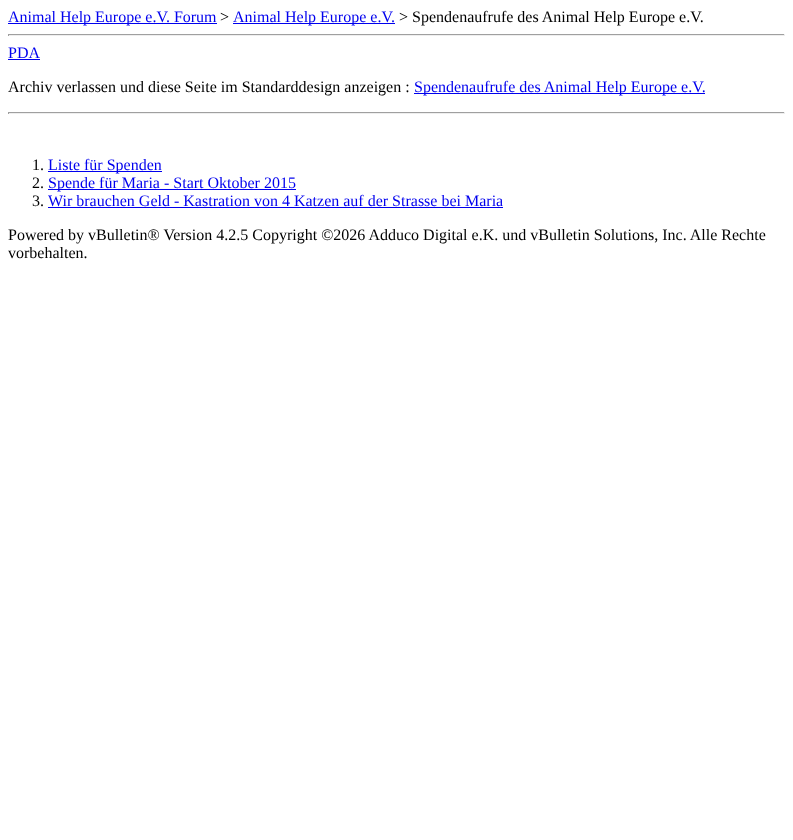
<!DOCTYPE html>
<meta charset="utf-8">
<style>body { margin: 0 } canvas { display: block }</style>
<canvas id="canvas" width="793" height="840"></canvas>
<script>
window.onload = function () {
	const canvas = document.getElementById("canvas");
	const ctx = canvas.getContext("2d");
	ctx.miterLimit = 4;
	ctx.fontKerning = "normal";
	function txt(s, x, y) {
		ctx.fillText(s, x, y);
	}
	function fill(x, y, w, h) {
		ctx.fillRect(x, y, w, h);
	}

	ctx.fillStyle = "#FFFFFF";
	fill(0, 0, 793, 840);
	ctx.fillStyle = "#0000EE";
	fill(8, 23, 209, 1);
	fill(233, 23, 162, 1);
	ctx.fillStyle = "#9F9F9F";
	fill(8, 34, 777, 1);
	ctx.fillStyle = "#EEEEEE";
	fill(784, 34, 1, 2);
	fill(8, 35, 777, 1);
	ctx.fillStyle = "#9F9F9F";
	fill(8, 34, 1, 2);
	ctx.fillStyle = "#0000EE";
	fill(8, 59, 32, 1);
	fill(414, 93, 291, 1);
	ctx.fillStyle = "#9F9F9F";
	fill(8, 112, 777, 1);
	ctx.fillStyle = "#EEEEEE";
	fill(784, 112, 1, 2);
	fill(8, 113, 777, 1);
	ctx.fillStyle = "#9F9F9F";
	fill(8, 112, 1, 2);
	ctx.fillStyle = "#0000EE";
	fill(48, 171, 114, 1);
	fill(48, 189, 248, 1);
	fill(48, 207, 455, 1);
	ctx.font = "16px Liberation Serif";
	txt("Animal Help Europe e.V. Forum", 8, 22);
	ctx.fillStyle = "#000000";
	txt(">", 220, 22);
	ctx.fillStyle = "#0000EE";
	txt("Animal Help Europe e.V.", 233, 22);
	ctx.fillStyle = "#000000";
	txt("> Spendenaufrufe des Animal Help Europe e.V.", 399, 22);
	ctx.fillStyle = "#0000EE";
	txt("PDA", 8, 58);
	ctx.fillStyle = "#000000";
	txt("Archiv verlassen und diese Seite im Standarddesign anzeigen :", 8, 92);
	ctx.fillStyle = "#0000EE";
	txt("Spendenaufrufe des Animal Help Europe e.V.", 414, 92);
	ctx.fillStyle = "#000000";
	txt("1.", 32, 170);
	ctx.fillStyle = "#0000EE";
	txt("Liste für Spenden", 48, 170);
	ctx.fillStyle = "#000000";
	txt("2.", 32, 188);
	ctx.fillStyle = "#0000EE";
	txt("Spende für Maria - Start Oktober 2015", 48, 188);
	ctx.fillStyle = "#000000";
	txt("3.", 32, 206);
	ctx.fillStyle = "#0000EE";
	txt("Wir brauchen Geld - Kastration von 4 Katzen auf der Strasse bei Maria", 48, 206);
	ctx.fillStyle = "#000000";
	txt("Powered by vBulletin® Version 4.2.5 Copyright ©2026 Adduco Digital e.K. und vBulletin Solutions, Inc. Alle Rechte", 8, 240);
	txt("vorbehalten.", 8, 258);
};
</script>
